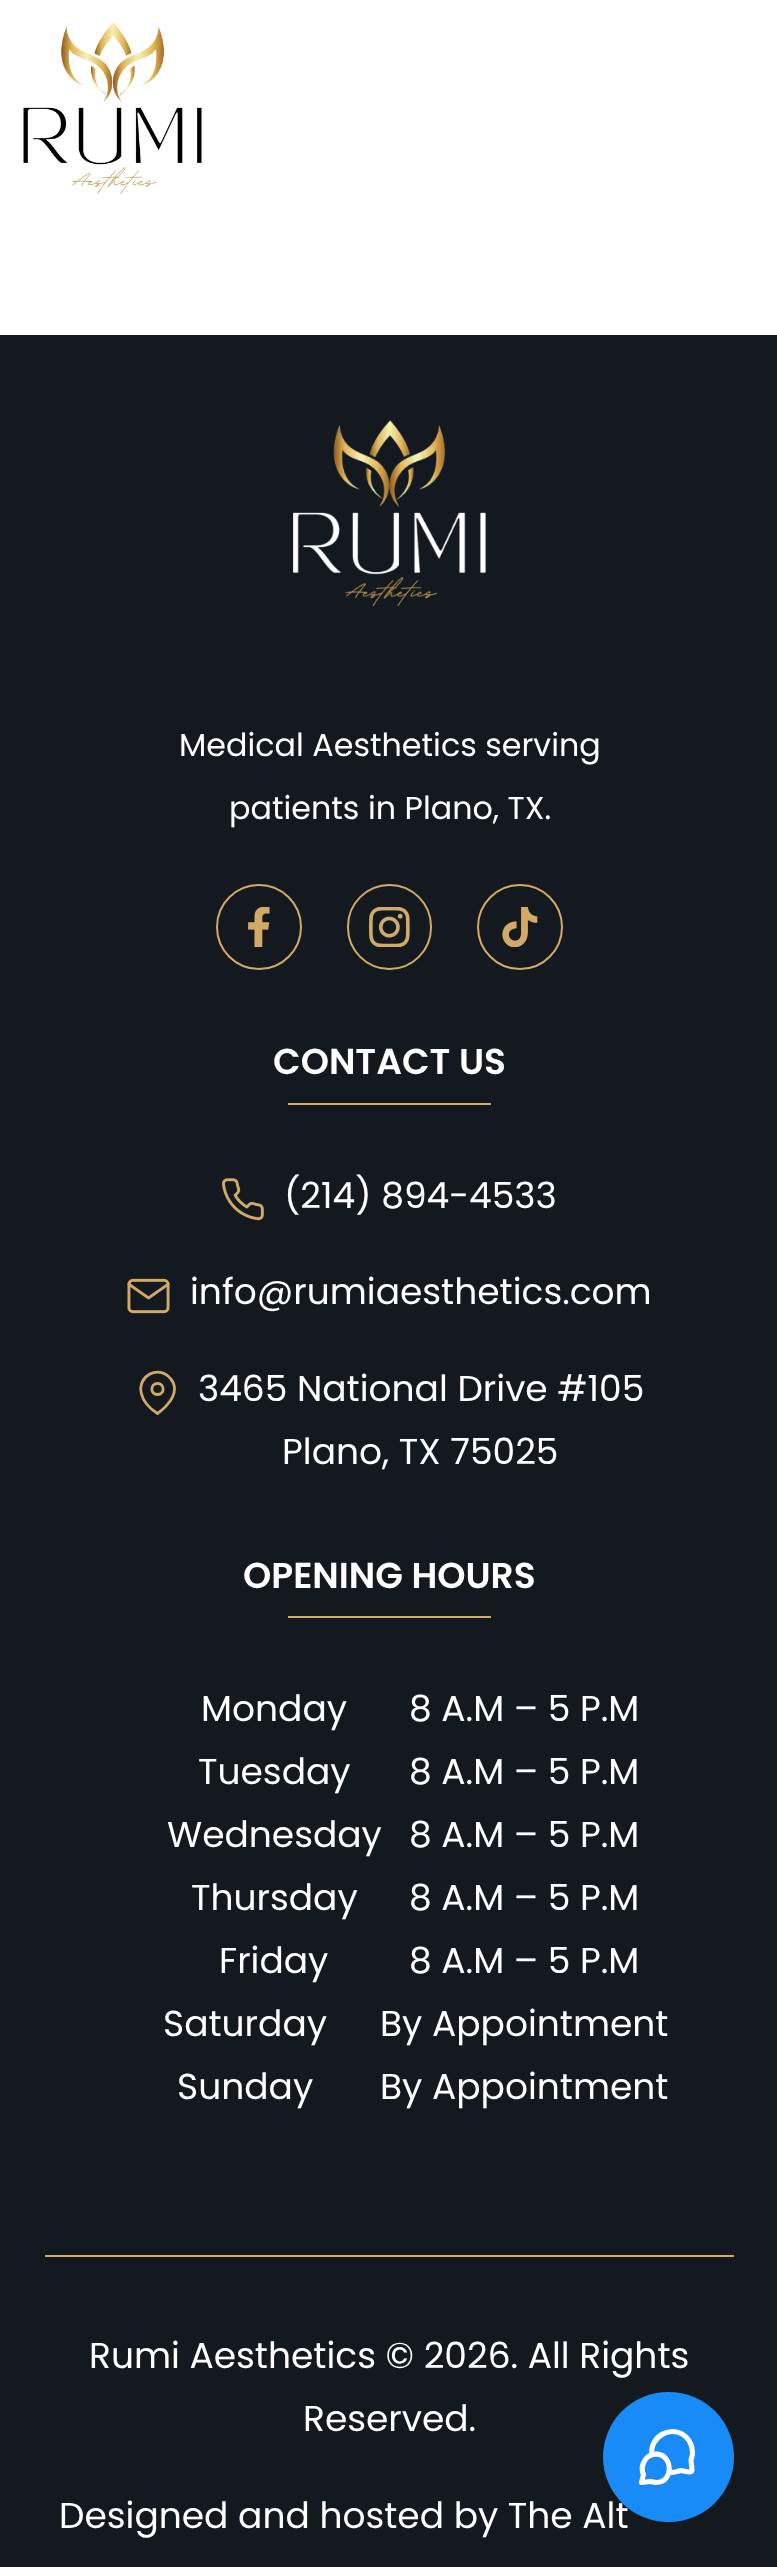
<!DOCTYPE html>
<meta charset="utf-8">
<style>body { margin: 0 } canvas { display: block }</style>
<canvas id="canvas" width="777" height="2567"></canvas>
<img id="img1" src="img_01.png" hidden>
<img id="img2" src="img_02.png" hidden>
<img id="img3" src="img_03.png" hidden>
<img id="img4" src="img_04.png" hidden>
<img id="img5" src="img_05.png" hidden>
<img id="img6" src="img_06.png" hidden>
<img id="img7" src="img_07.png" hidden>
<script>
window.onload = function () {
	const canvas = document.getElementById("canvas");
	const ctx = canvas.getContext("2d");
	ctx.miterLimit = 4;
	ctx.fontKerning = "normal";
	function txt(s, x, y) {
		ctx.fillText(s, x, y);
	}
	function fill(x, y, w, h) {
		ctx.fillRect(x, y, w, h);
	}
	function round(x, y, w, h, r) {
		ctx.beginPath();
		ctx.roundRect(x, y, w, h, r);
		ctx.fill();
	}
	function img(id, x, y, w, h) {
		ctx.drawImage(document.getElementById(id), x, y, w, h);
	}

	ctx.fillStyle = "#FFFFFF";
	fill(0, 0, 777, 2567);
	img("img1", 23, 22, 179, 172);
	ctx.fillStyle = "#14191F";
	fill(0, 335, 777, 2232);
	img("img2", 293, 420, 193, 186);
	ctx.beginPath();
	ctx.arc(259, 927, 42, 0, Math.PI * 2);
	ctx.strokeStyle = "#D2AA67";
	ctx.lineWidth = 2;
	ctx.stroke();
	img("img3", 248, 907, 22, 40);
	ctx.beginPath();
	ctx.roundRect(348, 885, 83, 84, 41.5);
	ctx.stroke();
	img("img4", 369, 907, 41, 40);
	ctx.beginPath();
	ctx.arc(520, 927, 42, 0, Math.PI * 2);
	ctx.stroke();
	img("img5", 502, 907, 36, 40);
	ctx.fillStyle = "#D2AA67";
	fill(288, 1103, 203, 2);
	img("img6", 222, 1178, 42, 43);
	img("img7", 127, 1278, 43, 36);
	ctx.beginPath();
	ctx.moveTo(174.5, 1389);
	ctx.bezierCurveTo(174.5, 1402, 157.5, 1413.5, 157.5, 1413.5);
	ctx.bezierCurveTo(150.5, 1409, 143.5, 1402, 141.5, 1394);
	ctx.bezierCurveTo(136.5, 1376, 159, 1364, 170.5, 1378.5);
	ctx.bezierCurveTo(173, 1381.5, 174.5, 1385, 174.5, 1389);
	ctx.closePath();
	ctx.moveTo(157.5, 1394.5);
	ctx.bezierCurveTo(165, 1394.5, 165, 1383.5, 157.5, 1383.5);
	ctx.bezierCurveTo(150, 1383.5, 150, 1394.5, 157.5, 1394.5);
	ctx.closePath();
	ctx.lineWidth = 2.8;
	ctx.lineCap = "round";
	ctx.lineJoin = "round";
	ctx.stroke();
	fill(288, 1616, 203, 2);
	fill(45, 2255, 689, 2);
	ctx.font = "31.75px Poppins";
	ctx.fillStyle = "#FFFFFF";
	txt("Medical Aesthetics serving", 179, 756);
	txt("patients in Plano, TX.", 229, 819);
	ctx.font = "600 36px Poppins";
	txt("CONTACT US", 273, 1074);
	ctx.font = "36px Poppins";
	txt("(214) 894-4533", 284, 1208);
	txt("info@rumiaesthetics.com", 190, 1304);
	txt("3465 National Drive #105", 198, 1401);
	txt("Plano, TX 75025", 282, 1464);
	ctx.font = "600 36px Poppins";
	txt("OPENING HOURS", 243, 1588);
	ctx.font = "36px Poppins";
	txt("Monday", 201, 1721);
	txt("8 A.M – 5 P.M", 409, 1721);
	txt("Tuesday", 198, 1784);
	txt("8 A.M – 5 P.M", 409, 1784);
	txt("Wednesday", 167, 1847);
	txt("8 A.M – 5 P.M", 409, 1847);
	txt("Thursday", 191, 1910);
	txt("8 A.M – 5 P.M", 409, 1910);
	txt("Friday", 219, 1973);
	txt("8 A.M – 5 P.M", 409, 1973);
	txt("Saturday", 163, 2036);
	txt("By Appointment", 380, 2036);
	txt("Sunday", 177, 2099);
	txt("By Appointment", 380, 2099);
	txt("Rumi Aesthetics © 2026. All Rights", 89, 2368);
	txt("Reserved.", 303, 2431);
	txt("Designed and hosted by The Alt", 59, 2528);
	ctx.fillStyle = "#188BF6";
	round(603, 2392, 131, 130, 65);
	ctx.beginPath();
	ctx.moveTo(652, 2455);
	ctx.bezierCurveTo(649, 2436, 673, 2423.5, 686.5, 2437.5);
	ctx.bezierCurveTo(690.5, 2441.5, 692, 2446.5, 692.5, 2452);
	ctx.bezierCurveTo(693, 2455, 691.5, 2457.5, 691, 2460);
	ctx.lineTo(692, 2470);
	ctx.lineTo(691.5, 2471.5);
	ctx.bezierCurveTo(690.5, 2473, 683, 2471, 681, 2470.5);
	ctx.lineTo(677, 2471.5);
	ctx.bezierCurveTo(674.5, 2472.5, 671.5, 2472.5, 669, 2472);
	ctx.moveTo(656, 2482.5);
	ctx.bezierCurveTo(675.5, 2482.5, 672.5, 2450.5, 653, 2454.5);
	ctx.bezierCurveTo(648.5, 2455.5, 645, 2459, 643.5, 2463);
	ctx.bezierCurveTo(642, 2466, 642, 2469, 642.5, 2472);
	ctx.lineTo(643.5, 2474.5);
	ctx.lineTo(641.5, 2482.5);
	ctx.lineTo(650.5, 2481.5);
	ctx.closePath();
	ctx.strokeStyle = "#FFFFFF";
	ctx.lineWidth = 5.1;
	ctx.stroke();
};
</script>
